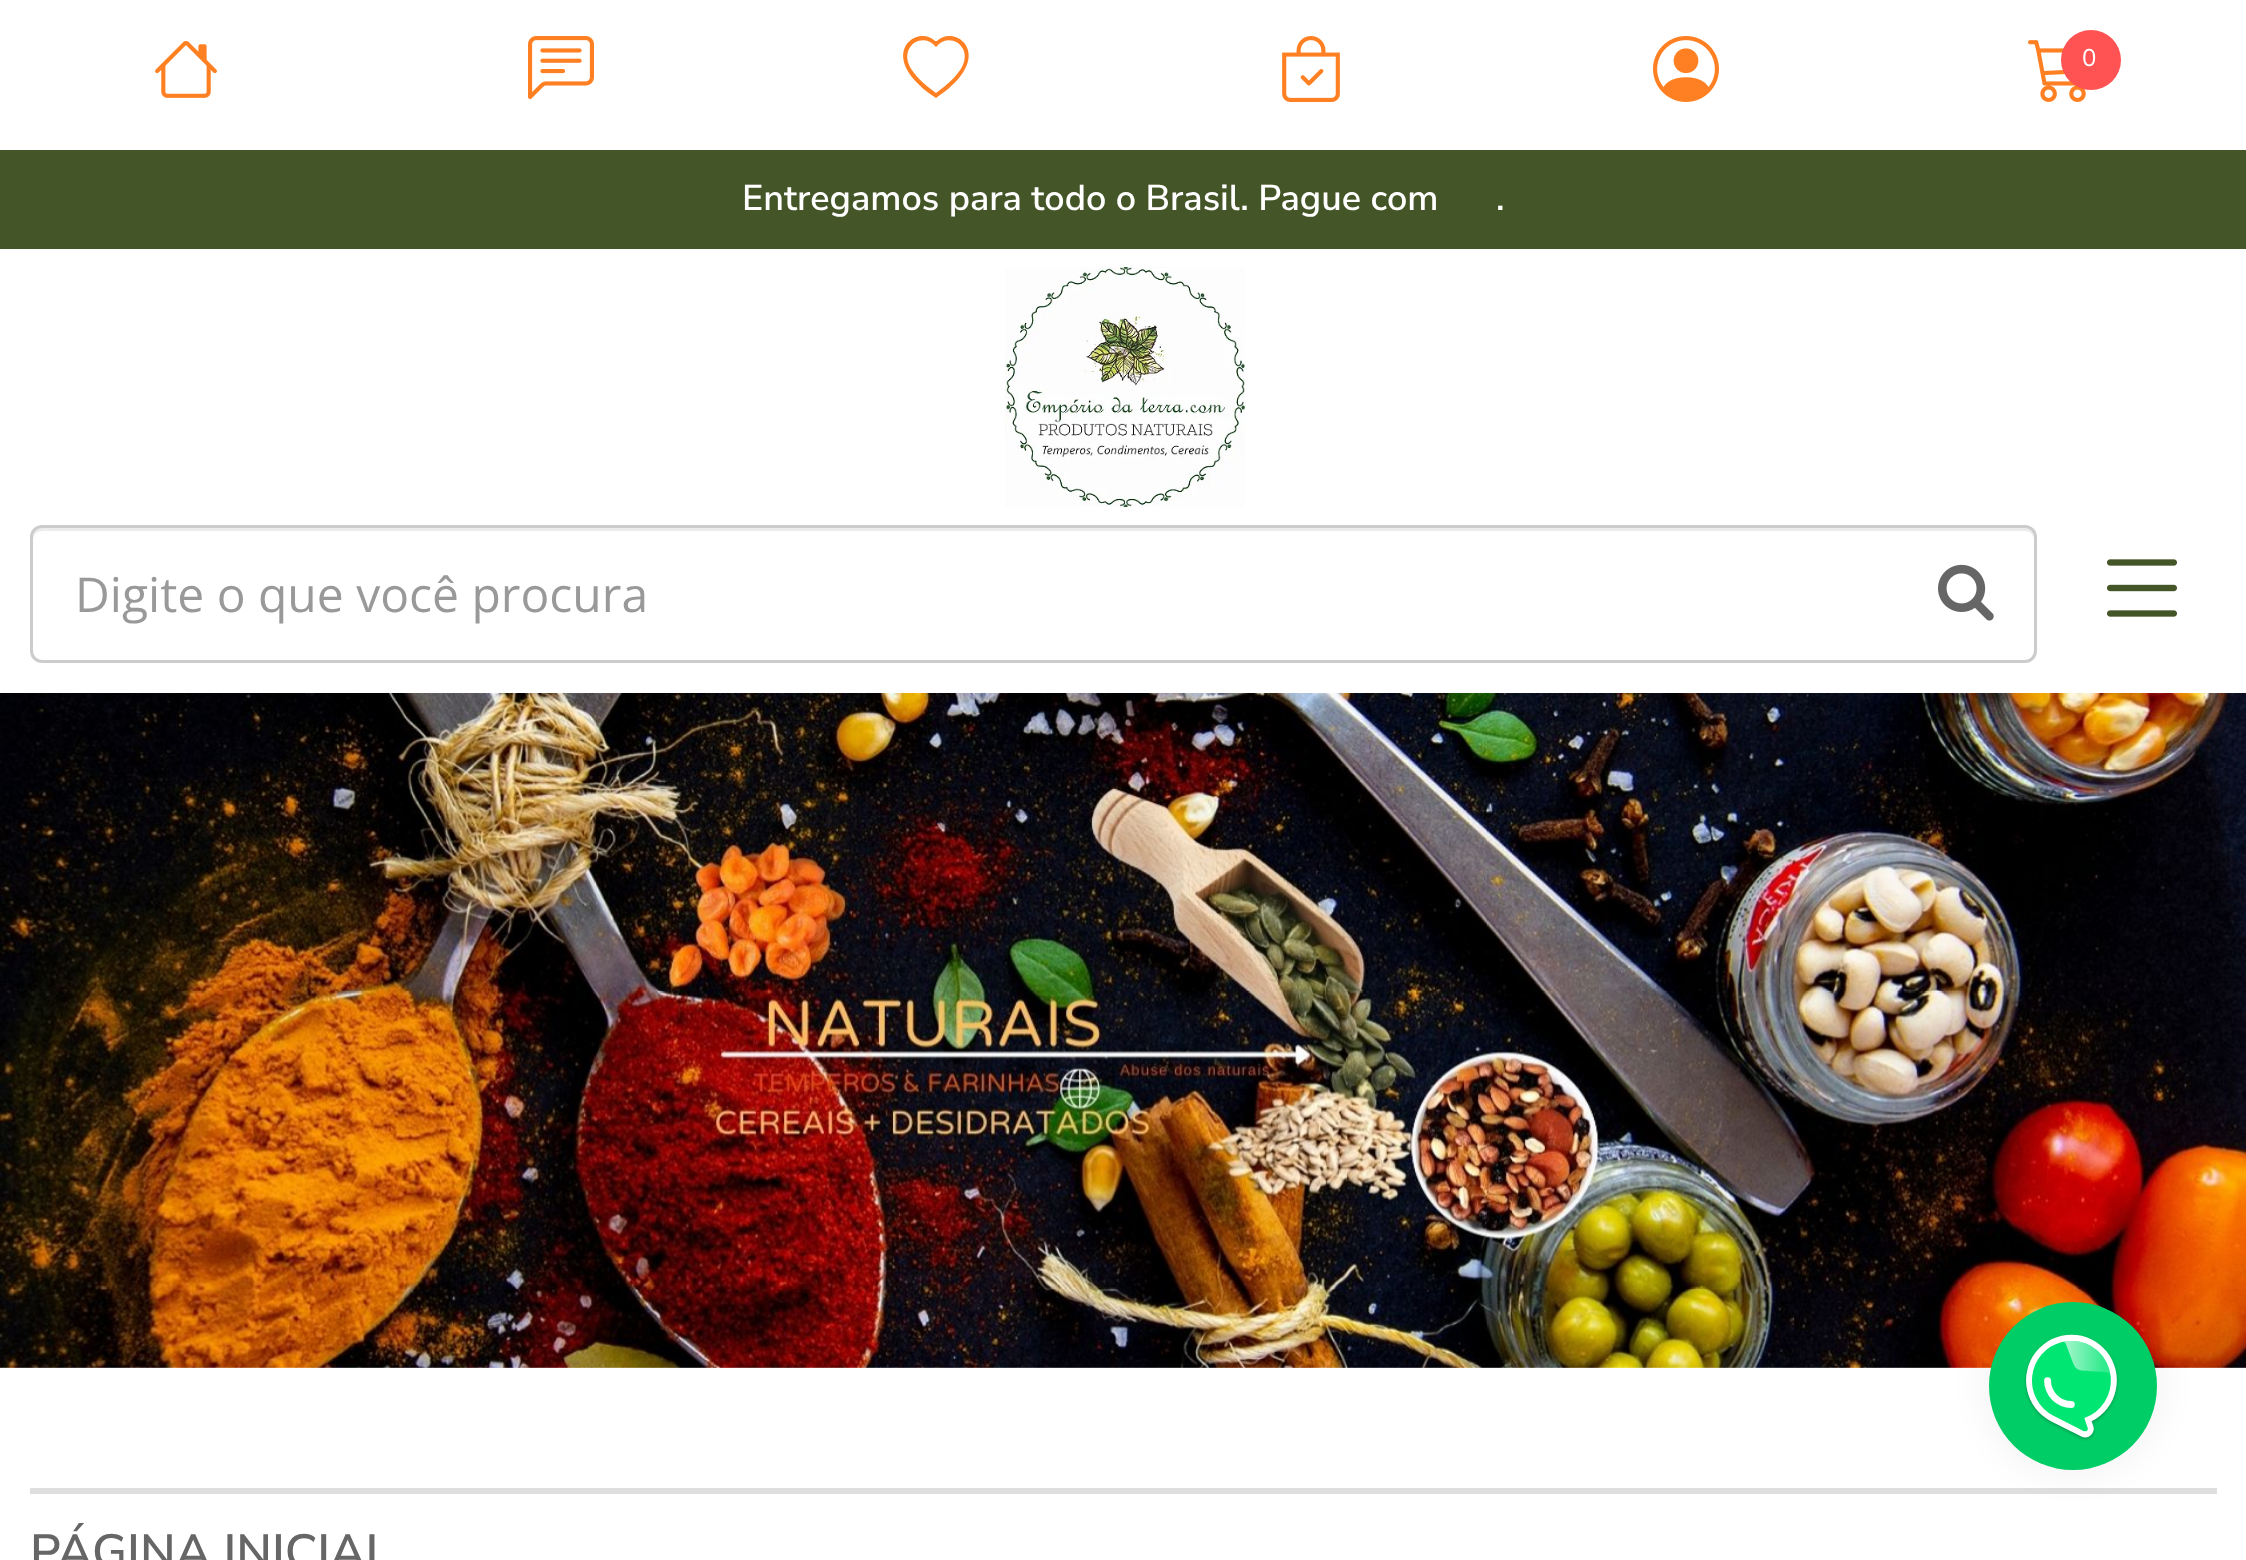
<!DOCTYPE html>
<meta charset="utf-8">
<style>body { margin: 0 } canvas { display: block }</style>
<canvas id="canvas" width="2246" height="1560"></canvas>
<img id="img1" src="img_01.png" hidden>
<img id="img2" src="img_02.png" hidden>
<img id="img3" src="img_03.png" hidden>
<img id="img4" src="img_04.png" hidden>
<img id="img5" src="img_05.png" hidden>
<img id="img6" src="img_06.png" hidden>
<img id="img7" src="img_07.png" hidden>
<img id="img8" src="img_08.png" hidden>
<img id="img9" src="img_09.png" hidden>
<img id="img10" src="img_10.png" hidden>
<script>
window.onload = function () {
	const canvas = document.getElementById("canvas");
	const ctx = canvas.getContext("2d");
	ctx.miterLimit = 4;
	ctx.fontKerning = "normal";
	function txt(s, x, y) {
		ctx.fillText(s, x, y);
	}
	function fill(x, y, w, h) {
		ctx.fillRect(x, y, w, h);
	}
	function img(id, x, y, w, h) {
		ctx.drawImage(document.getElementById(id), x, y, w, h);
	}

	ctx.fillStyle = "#FFFFFF";
	fill(0, 0, 2246, 1560);
	img("img1", 155, 41, 62, 57);
	img("img2", 528, 36, 66, 64);
	ctx.fillStyle = "#FF8023";
	ctx.beginPath();
	ctx.moveTo(936, 47);
	ctx.lineTo(933, 44);
	ctx.bezierCurveTo(926, 37, 913, 40, 909, 49);
	ctx.bezierCurveTo(907, 53, 906, 59, 910, 67);
	ctx.bezierCurveTo(914, 74, 922, 83, 936, 93);
	ctx.bezierCurveTo(950, 83, 958, 74, 962, 67);
	ctx.bezierCurveTo(966, 59, 965, 53, 963, 49);
	ctx.bezierCurveTo(959, 40, 946, 37, 939, 44);
	ctx.closePath();
	ctx.moveTo(936, 98);
	ctx.bezierCurveTo(873, 56, 917, 23, 935, 41);
	ctx.lineTo(936, 41);
	ctx.lineTo(937, 41);
	ctx.bezierCurveTo(955, 23, 999, 56, 936, 98);
	ctx.closePath();
	ctx.fill();
	img("img3", 1282, 36, 58, 66);
	img("img4", 1653, 36, 66, 66);
	img("img5", 2028, 40, 58, 62);
	ctx.fillStyle = "#FF5252";
	ctx.beginPath();
	ctx.arc(2091, 60, 30, 0, Math.PI * 2);
	ctx.fill();
	img("img6", 1005, 267, 240, 240);
	ctx.fillStyle = "#ECECEC";
	ctx.beginPath();
	ctx.moveTo(42, 531);
	ctx.lineTo(2025, 531);
	ctx.bezierCurveTo(2030, 531, 2034, 535, 2034, 540);
	ctx.lineTo(2034, 537);
	ctx.bezierCurveTo(2034, 532, 2030, 528, 2025, 528);
	ctx.lineTo(42, 528);
	ctx.bezierCurveTo(37, 528, 33, 532, 33, 537);
	ctx.lineTo(33, 540);
	ctx.bezierCurveTo(33, 535, 37, 531, 42, 531);
	ctx.closePath();
	ctx.fill();
	ctx.beginPath();
	ctx.roundRect(31.5, 526.5, 2004, 135, 10.5);
	ctx.strokeStyle = "#CCCCCC";
	ctx.lineWidth = 3;
	ctx.stroke();
	img("img7", 1938, 564, 56, 57);
	img("img8", 2107, 559, 70, 58);
	img("img9", 0, 693, 2246, 675);
	ctx.fillStyle = "#DEDEDE";
	fill(30, 1488, 2187, 6);
	ctx.fillStyle = "#445527";
	fill(0, 150, 2246, 99);
	ctx.fillStyle = "rgba(0, 0, 0, 0.04)";
	ctx.filter = "blur(15px)";
	ctx.beginPath();
	ctx.roundRect(1980, 1293, 186, 186, 93);
	ctx.fill();
	ctx.filter = "none";
	ctx.fillStyle = "#00CD66";
	ctx.beginPath();
	ctx.arc(2073, 1386, 84, 0, Math.PI * 2);
	ctx.fill();
	img("img10", 2024, 1334, 95, 107);
	ctx.font = "24px Nunito Sans";
	ctx.fillStyle = "#FFFFFF";
	txt("0", 2082, 66);
	ctx.font = "48px Open Sans";
	ctx.fillStyle = "#999999";
	txt("Digite o que você procura", 75, 612);
	ctx.font = "600 48px Nunito Sans";
	ctx.fillStyle = "#666666";
	txt("PÁGINA INICIAL", 30, 1568);
	ctx.font = "600 36px Nunito Sans";
	ctx.fillStyle = "#FFFFFF";
	txt("Entregamos para todo o Brasil. Pague com", 742, 210);
	txt(".", 1496, 210);
};
</script>
